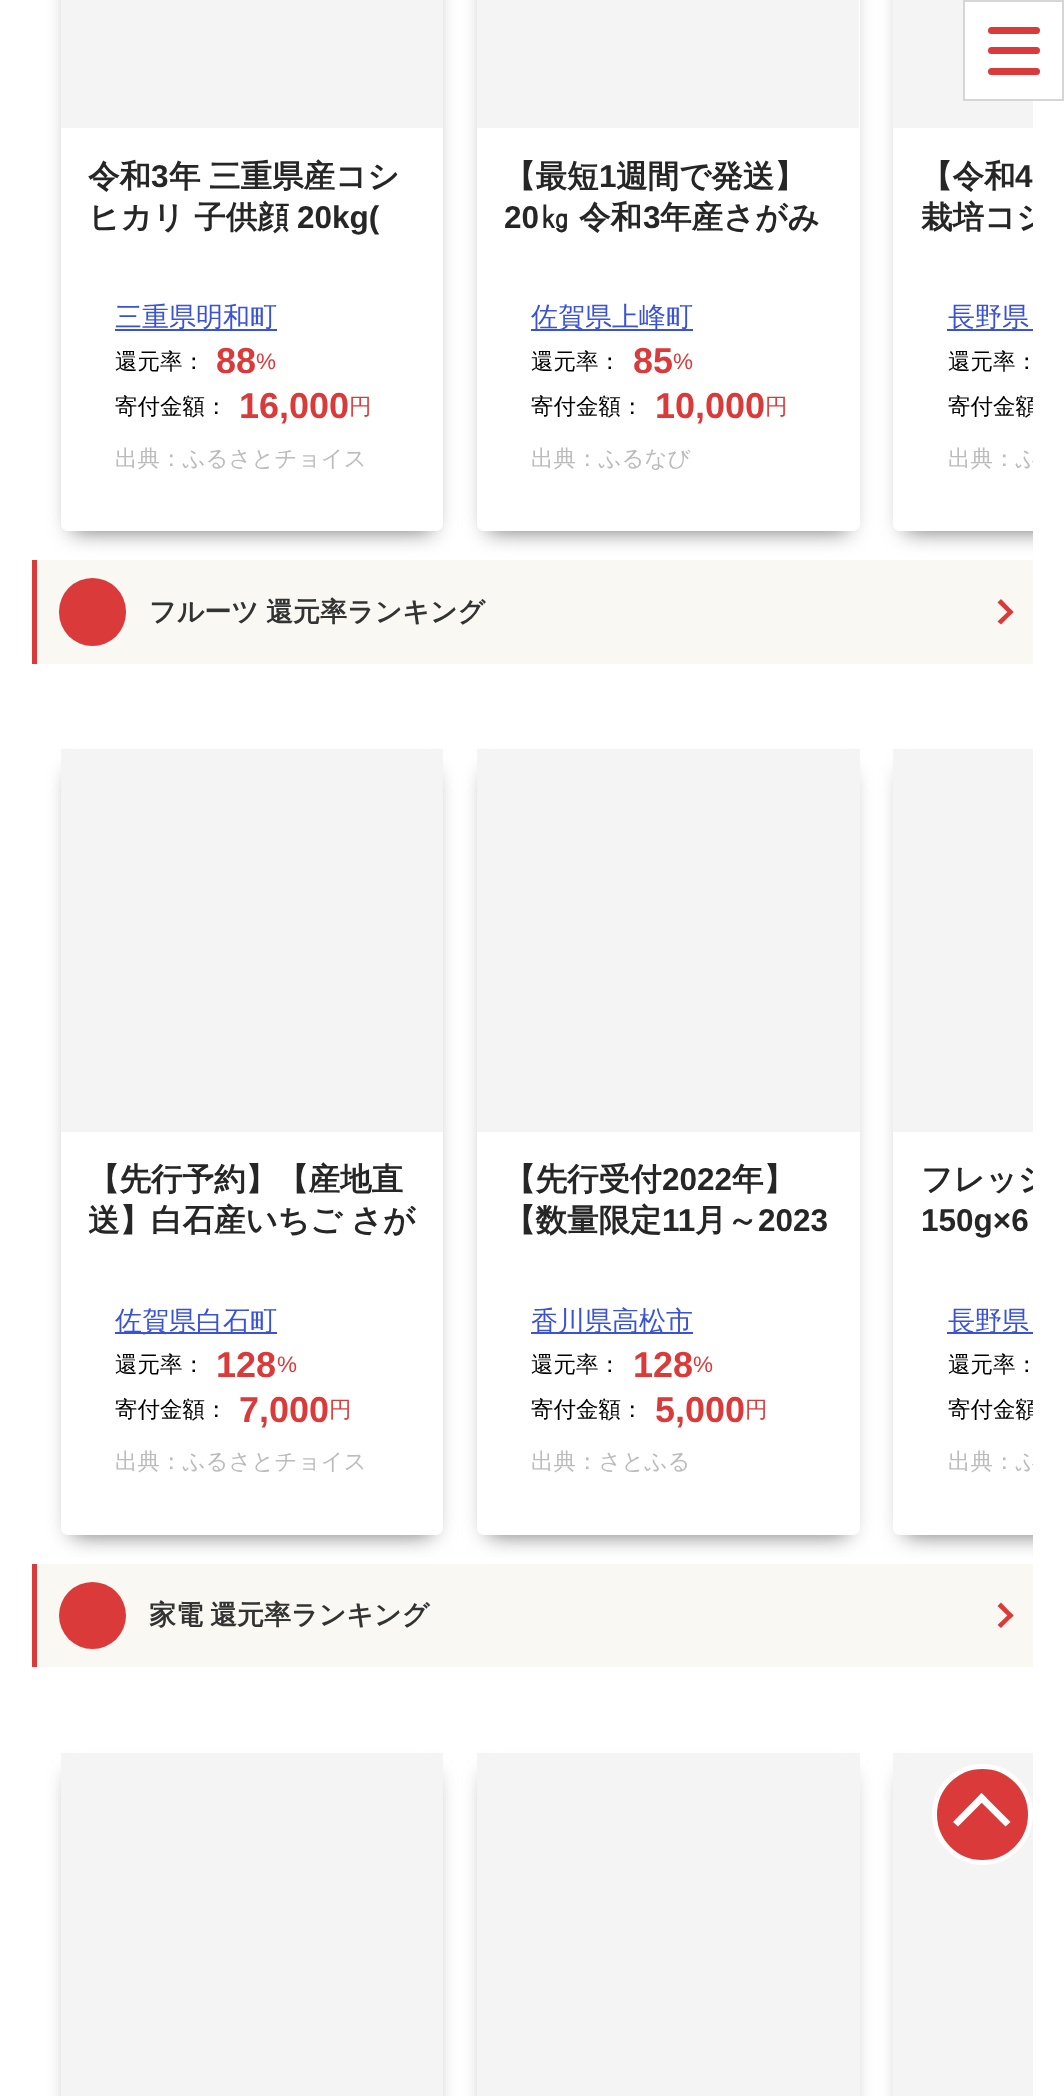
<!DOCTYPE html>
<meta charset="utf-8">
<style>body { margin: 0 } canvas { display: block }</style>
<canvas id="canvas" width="1064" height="2096"></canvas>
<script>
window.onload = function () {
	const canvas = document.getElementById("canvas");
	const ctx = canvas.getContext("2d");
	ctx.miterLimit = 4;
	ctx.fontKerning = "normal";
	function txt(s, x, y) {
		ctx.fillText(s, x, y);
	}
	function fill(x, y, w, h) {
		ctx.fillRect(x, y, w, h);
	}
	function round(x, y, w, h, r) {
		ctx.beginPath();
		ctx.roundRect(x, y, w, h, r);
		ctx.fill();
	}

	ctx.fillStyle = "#FFFFFF";
	fill(0, 0, 1064, 2096);
	ctx.save();
	ctx.beginPath();
	ctx.rect(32, 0, 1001, 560);
	ctx.clip();
	ctx.beginPath();
	ctx.moveTo(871, 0);
	ctx.lineTo(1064, 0);
	ctx.lineTo(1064, 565);
	ctx.lineTo(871, 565);
	ctx.closePath();
	ctx.moveTo(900, -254);
	ctx.lineTo(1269, -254);
	ctx.bezierCurveTo(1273, -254, 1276, -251, 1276, -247);
	ctx.lineTo(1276, 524);
	ctx.bezierCurveTo(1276, 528, 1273, 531, 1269, 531);
	ctx.lineTo(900, 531);
	ctx.bezierCurveTo(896, 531, 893, 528, 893, 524);
	ctx.lineTo(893, -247);
	ctx.bezierCurveTo(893, -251, 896, -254, 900, -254);
	ctx.closePath();
	ctx.clip("evenodd");
	ctx.fillStyle = "#707070";
	ctx.filter = "blur(11px)";
	ctx.beginPath();
	ctx.rect(905, -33, 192, 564);
	ctx.fill();
	ctx.filter = "none";
	ctx.restore();
	ctx.fillStyle = "#F4F4F4";
	fill(893, 0, 140, 128);
	ctx.fillStyle = "#FFFFFF";
	fill(965, 2, 68, 97);
	ctx.strokeStyle = "#D6D6D6";
	ctx.lineWidth = 2;
	ctx.strokeRect(964, 1, 99, 99);
	ctx.fillStyle = "#DB3A3A";
	round(988, 27, 52, 7, 3.5);
	round(988, 47, 52, 7, 3.5);
	round(988, 68, 52, 7, 3.5);
	ctx.save();
	ctx.beginPath();
	ctx.moveTo(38, 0);
	ctx.lineTo(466, 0);
	ctx.lineTo(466, 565);
	ctx.lineTo(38, 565);
	ctx.closePath();
	ctx.moveTo(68, -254);
	ctx.lineTo(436, -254);
	ctx.bezierCurveTo(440, -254, 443, -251, 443, -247);
	ctx.lineTo(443, 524);
	ctx.bezierCurveTo(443, 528, 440, 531, 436, 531);
	ctx.lineTo(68, 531);
	ctx.bezierCurveTo(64, 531, 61, 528, 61, 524);
	ctx.lineTo(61, -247);
	ctx.bezierCurveTo(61, -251, 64, -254, 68, -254);
	ctx.closePath();
	ctx.clip("evenodd");
	ctx.fillStyle = "#707070";
	ctx.filter = "blur(11px)";
	ctx.beginPath();
	ctx.rect(72, -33, 360, 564);
	ctx.fill();
	ctx.filter = "none";
	ctx.restore();
	ctx.fillStyle = "#F4F4F4";
	fill(61, 0, 382, 128);
	ctx.fillStyle = "#3A52D8";
	fill(115, 329, 162, 2);
	ctx.save();
	ctx.beginPath();
	ctx.moveTo(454, 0);
	ctx.lineTo(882, 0);
	ctx.lineTo(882, 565);
	ctx.lineTo(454, 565);
	ctx.closePath();
	ctx.moveTo(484, -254);
	ctx.lineTo(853, -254);
	ctx.bezierCurveTo(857, -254, 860, -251, 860, -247);
	ctx.lineTo(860, 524);
	ctx.bezierCurveTo(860, 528, 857, 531, 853, 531);
	ctx.lineTo(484, 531);
	ctx.bezierCurveTo(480, 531, 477, 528, 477, 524);
	ctx.lineTo(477, -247);
	ctx.bezierCurveTo(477, -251, 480, -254, 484, -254);
	ctx.closePath();
	ctx.clip("evenodd");
	ctx.fillStyle = "#707070";
	ctx.filter = "blur(11px)";
	ctx.beginPath();
	ctx.rect(488, -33, 360, 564);
	ctx.fill();
	ctx.filter = "none";
	ctx.restore();
	ctx.fillStyle = "#F4F4F4";
	fill(477, 0, 382, 128);
	ctx.fillStyle = "#3A52D8";
	fill(531, 329, 162, 2);
	fill(947, 329, 86, 2);
	ctx.fillStyle = "#F9F8F3";
	fill(37, 560, 996, 104);
	ctx.fillStyle = "#DB3A3A";
	fill(32, 560, 5, 104);
	round(59, 578, 67, 68, 33.5);
	ctx.beginPath();
	ctx.moveTo(1001, 599);
	ctx.lineTo(1013.5, 612);
	ctx.lineTo(1010.5, 615);
	ctx.lineTo(997.5, 602.5);
	ctx.closePath();
	ctx.fill();
	ctx.beginPath();
	ctx.moveTo(1010.5, 609);
	ctx.lineTo(1013.5, 612);
	ctx.lineTo(1001, 624.5);
	ctx.lineTo(997.5, 621.5);
	ctx.closePath();
	ctx.fill();
	ctx.save();
	ctx.beginPath();
	ctx.moveTo(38, 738);
	ctx.lineTo(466, 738);
	ctx.lineTo(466, 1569);
	ctx.lineTo(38, 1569);
	ctx.closePath();
	ctx.moveTo(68, 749);
	ctx.lineTo(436, 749);
	ctx.bezierCurveTo(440, 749, 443, 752, 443, 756);
	ctx.lineTo(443, 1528);
	ctx.bezierCurveTo(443, 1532, 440, 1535, 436, 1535);
	ctx.lineTo(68, 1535);
	ctx.bezierCurveTo(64, 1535, 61, 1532, 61, 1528);
	ctx.lineTo(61, 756);
	ctx.bezierCurveTo(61, 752, 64, 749, 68, 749);
	ctx.closePath();
	ctx.clip("evenodd");
	ctx.fillStyle = "#707070";
	ctx.filter = "blur(11px)";
	ctx.beginPath();
	ctx.rect(72, 772, 360, 763);
	ctx.fill();
	ctx.filter = "none";
	ctx.restore();
	ctx.fillStyle = "#F4F4F4";
	fill(61, 749, 382, 383);
	ctx.fillStyle = "#3A52D8";
	fill(115, 1332, 162, 2);
	ctx.save();
	ctx.beginPath();
	ctx.moveTo(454, 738);
	ctx.lineTo(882, 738);
	ctx.lineTo(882, 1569);
	ctx.lineTo(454, 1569);
	ctx.closePath();
	ctx.moveTo(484, 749);
	ctx.lineTo(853, 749);
	ctx.bezierCurveTo(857, 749, 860, 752, 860, 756);
	ctx.lineTo(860, 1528);
	ctx.bezierCurveTo(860, 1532, 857, 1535, 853, 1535);
	ctx.lineTo(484, 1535);
	ctx.bezierCurveTo(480, 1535, 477, 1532, 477, 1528);
	ctx.lineTo(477, 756);
	ctx.bezierCurveTo(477, 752, 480, 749, 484, 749);
	ctx.closePath();
	ctx.clip("evenodd");
	ctx.fillStyle = "#707070";
	ctx.filter = "blur(11px)";
	ctx.beginPath();
	ctx.rect(488, 772, 360, 763);
	ctx.fill();
	ctx.filter = "none";
	ctx.restore();
	ctx.fillStyle = "#F4F4F4";
	fill(477, 749, 383, 383);
	ctx.fillStyle = "#3A52D8";
	fill(531, 1332, 162, 2);
	ctx.save();
	ctx.beginPath();
	ctx.rect(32, 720, 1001, 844);
	ctx.clip();
	ctx.beginPath();
	ctx.moveTo(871, 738);
	ctx.lineTo(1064, 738);
	ctx.lineTo(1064, 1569);
	ctx.lineTo(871, 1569);
	ctx.closePath();
	ctx.moveTo(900, 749);
	ctx.lineTo(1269, 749);
	ctx.bezierCurveTo(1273, 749, 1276, 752, 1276, 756);
	ctx.lineTo(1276, 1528);
	ctx.bezierCurveTo(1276, 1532, 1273, 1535, 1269, 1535);
	ctx.lineTo(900, 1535);
	ctx.bezierCurveTo(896, 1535, 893, 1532, 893, 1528);
	ctx.lineTo(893, 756);
	ctx.bezierCurveTo(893, 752, 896, 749, 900, 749);
	ctx.closePath();
	ctx.clip("evenodd");
	ctx.fillStyle = "#707070";
	ctx.filter = "blur(11px)";
	ctx.beginPath();
	ctx.rect(905, 772, 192, 763);
	ctx.fill();
	ctx.filter = "none";
	ctx.restore();
	ctx.fillStyle = "#F4F4F4";
	fill(893, 749, 140, 383);
	ctx.fillStyle = "#3A52D8";
	fill(947, 1332, 86, 2);
	ctx.fillStyle = "#F9F8F3";
	fill(37, 1564, 996, 103);
	ctx.fillStyle = "#DB3A3A";
	fill(32, 1564, 5, 103);
	ctx.beginPath();
	ctx.arc(92.5, 1615.5, 33.5, 0, Math.PI * 2);
	ctx.fill();
	ctx.beginPath();
	ctx.moveTo(1001, 1602.5);
	ctx.lineTo(1013.5, 1615.5);
	ctx.lineTo(1010.5, 1618.5);
	ctx.lineTo(997.5, 1606);
	ctx.closePath();
	ctx.fill();
	ctx.beginPath();
	ctx.moveTo(1010.5, 1612.5);
	ctx.lineTo(1013.5, 1615.5);
	ctx.lineTo(1001, 1628);
	ctx.lineTo(997.5, 1625);
	ctx.closePath();
	ctx.fill();
	ctx.fillStyle = "#707070";
	ctx.filter = "blur(11px)";
	ctx.beginPath();
	ctx.rect(72, 1775, 360, 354);
	ctx.fill();
	ctx.filter = "none";
	ctx.fillStyle = "#F4F4F4";
	fill(61, 1753, 382, 343);
	ctx.fillStyle = "#707070";
	ctx.filter = "blur(11px)";
	ctx.beginPath();
	ctx.rect(488, 1775, 360, 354);
	ctx.fill();
	ctx.filter = "none";
	ctx.fillStyle = "#F4F4F4";
	fill(477, 1753, 383, 343);
	ctx.save();
	ctx.beginPath();
	ctx.rect(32, 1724, 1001, 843);
	ctx.clip();
	ctx.fillStyle = "#707070";
	ctx.filter = "blur(11px)";
	ctx.beginPath();
	ctx.rect(905, 1775, 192, 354);
	ctx.fill();
	ctx.filter = "none";
	ctx.restore();
	fill(893, 1753, 140, 343);
	ctx.fillStyle = "#DB3A3A";
	ctx.beginPath();
	ctx.arc(982.5, 1814.5, 48, 0, Math.PI * 2);
	ctx.fill();
	ctx.strokeStyle = "#FFFFFF";
	ctx.lineWidth = 5;
	ctx.stroke();
	ctx.fillStyle = "#FFFFFF";
	ctx.beginPath();
	ctx.moveTo(953, 1822);
	ctx.lineTo(981.5, 1793);
	ctx.lineTo(986.5, 1798);
	ctx.lineTo(958, 1826.5);
	ctx.closePath();
	ctx.fill();
	ctx.beginPath();
	ctx.moveTo(977, 1798);
	ctx.lineTo(981.5, 1793);
	ctx.lineTo(1010.5, 1822);
	ctx.lineTo(1005.5, 1826.5);
	ctx.closePath();
	ctx.fill();
	ctx.font = "bold 31.5px WenQuanYi Zen Hei";
	ctx.fillStyle = "#262626";
	txt("令和", 88, 187);
	ctx.font = "bold 31.5px Liberation Sans";
	txt("3", 151, 187);
	ctx.wordSpacing = "-1px";
	ctx.font = "bold 31.5px WenQuanYi Zen Hei";
	txt("年 三重県産コシ", 169, 187);
	ctx.wordSpacing = "0px";
	txt("ヒカリ 子供顔", 88, 228);
	ctx.font = "bold 31.5px Liberation Sans";
	txt("20kg(", 297, 228);
	ctx.font = "500 27px WenQuanYi Zen Hei";
	ctx.fillStyle = "#3A52D8";
	txt("三重県明和町", 115, 326);
	ctx.font = "500 22.5px WenQuanYi Zen Hei";
	ctx.fillStyle = "#000000";
	txt("還元率：", 115, 369);
	ctx.font = "bold 36px Liberation Sans";
	ctx.fillStyle = "#DB3A3A";
	txt("88", 216, 373);
	ctx.font = "22.5px Liberation Sans";
	txt("%", 256, 369);
	ctx.font = "500 22.5px WenQuanYi Zen Hei";
	ctx.fillStyle = "#000000";
	txt("寄付金額：", 115, 414);
	ctx.font = "bold 36px Liberation Sans";
	ctx.fillStyle = "#DB3A3A";
	txt("16,000", 239, 418);
	ctx.font = "500 22.5px WenQuanYi Zen Hei";
	txt("円", 349, 414);
	ctx.fillStyle = "#BCBCBC";
	txt("出典：ふるさとチョイス", 115, 466);
	ctx.font = "bold 31.5px WenQuanYi Zen Hei";
	ctx.fillStyle = "#262626";
	txt("【最短", 504, 187);
	ctx.font = "bold 31.5px Liberation Sans";
	txt("1", 599, 187);
	ctx.font = "bold 31.5px WenQuanYi Zen Hei";
	txt("週間で発送】", 616, 187);
	ctx.font = "bold 31.5px Liberation Sans";
	txt("20", 504, 228);
	ctx.wordSpacing = "-1px";
	ctx.font = "bold 31.5px WenQuanYi Zen Hei";
	txt("㎏ 令和", 539, 228);
	ctx.wordSpacing = "0px";
	ctx.font = "bold 31.5px Liberation Sans";
	txt("3", 643, 228);
	ctx.font = "bold 31.5px WenQuanYi Zen Hei";
	txt("年産さがみ", 660, 228);
	ctx.font = "500 27px WenQuanYi Zen Hei";
	ctx.fillStyle = "#3A52D8";
	txt("佐賀県上峰町", 531, 326);
	ctx.font = "500 22.5px WenQuanYi Zen Hei";
	ctx.fillStyle = "#000000";
	txt("還元率：", 531, 369);
	ctx.font = "bold 36px Liberation Sans";
	ctx.fillStyle = "#DB3A3A";
	txt("85", 633, 373);
	ctx.font = "22.5px Liberation Sans";
	txt("%", 673, 369);
	ctx.font = "500 22.5px WenQuanYi Zen Hei";
	ctx.fillStyle = "#000000";
	txt("寄付金額：", 531, 414);
	ctx.font = "bold 36px Liberation Sans";
	ctx.fillStyle = "#DB3A3A";
	txt("10,000", 655, 418);
	ctx.font = "500 22.5px WenQuanYi Zen Hei";
	txt("円", 765, 414);
	ctx.fillStyle = "#BCBCBC";
	txt("出典：ふるなび", 531, 466);
	ctx.font = "bold 31.5px WenQuanYi Zen Hei";
	ctx.fillStyle = "#262626";
	txt("【令和", 921, 187);
	ctx.font = "bold 31.5px Liberation Sans";
	txt("4", 1015, 187);
	ctx.save();
	ctx.beginPath();
	ctx.rect(893, 155, 140, 86);
	ctx.clip();
	ctx.font = "bold 31.5px WenQuanYi Zen Hei";
	txt("栽培コシ", 921, 228);
	ctx.restore();
	ctx.font = "500 27px WenQuanYi Zen Hei";
	ctx.fillStyle = "#3A52D8";
	txt("長野県", 948, 326);
	ctx.font = "500 22.5px WenQuanYi Zen Hei";
	ctx.fillStyle = "#000000";
	txt("還元率：", 948, 369);
	ctx.save();
	ctx.beginPath();
	ctx.rect(32, 0, 1001, 560);
	ctx.clip();
	txt("寄付金額", 948, 414);
	ctx.fillStyle = "#BCBCBC";
	txt("出典：ふ", 948, 466);
	ctx.restore();
	ctx.wordSpacing = "-1px";
	ctx.font = "bold 27px WenQuanYi Zen Hei";
	ctx.fillStyle = "#333333";
	txt("フルーツ 還元率ランキング", 149, 621);
	ctx.wordSpacing = "0px";
	ctx.font = "bold 31.5px WenQuanYi Zen Hei";
	ctx.fillStyle = "#262626";
	txt("【先行予約】【産地直", 88, 1190);
	ctx.wordSpacing = "-1px";
	txt("送】白石産いちご さが", 88, 1231);
	ctx.wordSpacing = "0px";
	ctx.font = "500 27px WenQuanYi Zen Hei";
	ctx.fillStyle = "#3A52D8";
	txt("佐賀県白石町", 115, 1330);
	ctx.font = "500 22.5px WenQuanYi Zen Hei";
	ctx.fillStyle = "#000000";
	txt("還元率：", 115, 1372);
	ctx.font = "bold 36px Liberation Sans";
	ctx.fillStyle = "#DB3A3A";
	txt("128", 216, 1377);
	ctx.font = "22.5px Liberation Sans";
	txt("%", 277, 1372);
	ctx.font = "500 22.5px WenQuanYi Zen Hei";
	ctx.fillStyle = "#000000";
	txt("寄付金額：", 115, 1417);
	ctx.font = "bold 36px Liberation Sans";
	ctx.fillStyle = "#DB3A3A";
	txt("7,000", 239, 1422);
	ctx.font = "500 22.5px WenQuanYi Zen Hei";
	txt("円", 329, 1417);
	ctx.fillStyle = "#BCBCBC";
	txt("出典：ふるさとチョイス", 115, 1469);
	ctx.font = "bold 31.5px WenQuanYi Zen Hei";
	ctx.fillStyle = "#262626";
	txt("【先行受付", 504, 1190);
	ctx.font = "bold 31.5px Liberation Sans";
	txt("2022", 662, 1190);
	ctx.font = "bold 31.5px WenQuanYi Zen Hei";
	txt("年】", 732, 1190);
	txt("【数量限定", 504, 1231);
	ctx.font = "bold 31.5px Liberation Sans";
	txt("11", 662, 1231);
	ctx.font = "bold 31.5px WenQuanYi Zen Hei";
	txt("月～", 695, 1231);
	ctx.font = "bold 31.5px Liberation Sans";
	txt("2023", 758, 1231);
	ctx.font = "500 27px WenQuanYi Zen Hei";
	ctx.fillStyle = "#3A52D8";
	txt("香川県高松市", 531, 1330);
	ctx.font = "500 22.5px WenQuanYi Zen Hei";
	ctx.fillStyle = "#000000";
	txt("還元率：", 531, 1372);
	ctx.font = "bold 36px Liberation Sans";
	ctx.fillStyle = "#DB3A3A";
	txt("128", 633, 1377);
	ctx.font = "22.5px Liberation Sans";
	txt("%", 693, 1372);
	ctx.font = "500 22.5px WenQuanYi Zen Hei";
	ctx.fillStyle = "#000000";
	txt("寄付金額：", 531, 1417);
	ctx.font = "bold 36px Liberation Sans";
	ctx.fillStyle = "#DB3A3A";
	txt("5,000", 655, 1422);
	ctx.font = "500 22.5px WenQuanYi Zen Hei";
	txt("円", 745, 1417);
	ctx.fillStyle = "#BCBCBC";
	txt("出典：さとふる", 531, 1469);
	ctx.save();
	ctx.beginPath();
	ctx.rect(893, 1159, 140, 85);
	ctx.clip();
	ctx.wordSpacing = "-1px";
	ctx.font = "bold 31.5px WenQuanYi Zen Hei";
	ctx.fillStyle = "#262626";
	txt("フレッシ", 921, 1190);
	ctx.restore();
	ctx.font = "bold 31.5px Liberation Sans";
	ctx.fillStyle = "#262626";
	txt("150g×6", 921, 1231);
	ctx.font = "500 27px WenQuanYi Zen Hei";
	ctx.fillStyle = "#3A52D8";
	txt("長野県", 948, 1330);
	ctx.font = "500 22.5px WenQuanYi Zen Hei";
	ctx.fillStyle = "#000000";
	txt("還元率：", 948, 1372);
	ctx.save();
	ctx.beginPath();
	ctx.rect(32, 720, 1001, 844);
	ctx.clip();
	txt("寄付金額", 948, 1417);
	ctx.fillStyle = "#BCBCBC";
	txt("出典：ふ", 948, 1469);
	ctx.restore();
	ctx.wordSpacing = "-1px";
	ctx.font = "bold 27px WenQuanYi Zen Hei";
	ctx.fillStyle = "#333333";
	txt("家電 還元率ランキング", 149, 1624);
};
</script>
